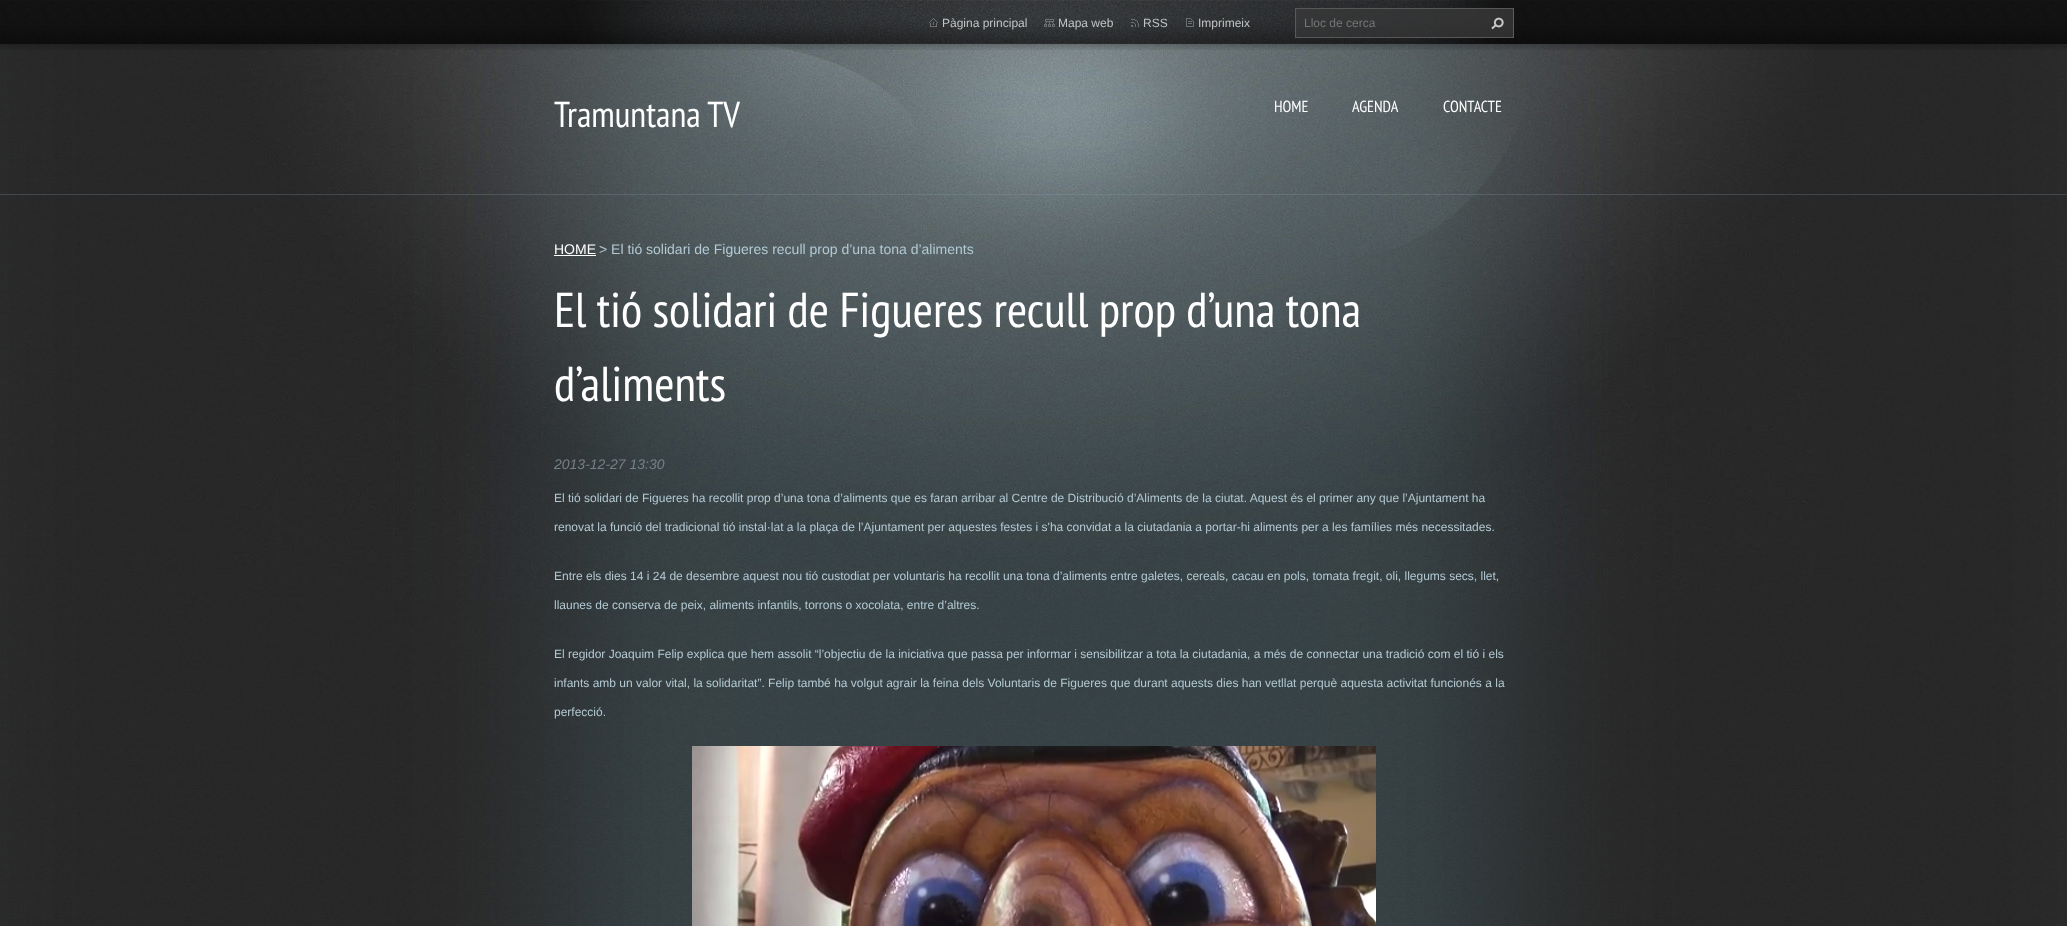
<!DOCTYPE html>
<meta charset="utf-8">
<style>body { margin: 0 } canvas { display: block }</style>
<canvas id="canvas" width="2067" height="926"></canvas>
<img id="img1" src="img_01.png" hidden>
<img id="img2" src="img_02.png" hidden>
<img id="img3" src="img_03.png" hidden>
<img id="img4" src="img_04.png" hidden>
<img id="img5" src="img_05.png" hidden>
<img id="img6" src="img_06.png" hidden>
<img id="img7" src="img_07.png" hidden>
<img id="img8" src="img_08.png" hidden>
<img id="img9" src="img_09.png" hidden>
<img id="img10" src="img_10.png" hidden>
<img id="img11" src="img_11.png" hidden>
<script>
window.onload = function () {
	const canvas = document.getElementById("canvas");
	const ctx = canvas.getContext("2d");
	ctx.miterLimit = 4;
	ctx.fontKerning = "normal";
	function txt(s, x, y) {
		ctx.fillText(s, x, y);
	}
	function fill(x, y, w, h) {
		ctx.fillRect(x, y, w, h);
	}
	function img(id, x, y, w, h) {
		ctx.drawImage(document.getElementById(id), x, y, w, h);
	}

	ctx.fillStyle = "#FFFFFF";
	fill(0, 0, 2067, 926);
	img("img1", 0, 44, 2067, 882);
	img("img2", 234, 44, 1580, 556);
	ctx.fillStyle = "rgba(131, 158, 185, 0.26)";
	fill(0, 194, 2067, 1);
	img("img3", 0, 0, 2067, 50);
	img("img4", 573, 0, 925, 44);
	img("img5", 929, 18, 9, 9);
	img("img6", 1044, 19, 11, 8);
	img("img7", 1131, 19, 8, 8);
	img("img8", 1186, 18, 8, 9);
	img("img9", 1295, 8, 219, 30);
	img("img10", 1491, 17, 13, 13);
	ctx.fillStyle = "#FFFFFF";
	fill(554, 255, 42, 1);
	img("img11", 692, 746, 684, 180);
	ctx.font = "12px Liberation Sans";
	ctx.fillStyle = "#C3C3C3";
	txt("Pàgina principal", 942, 27);
	txt("Mapa web", 1058, 27);
	txt("RSS", 1143, 27);
	txt("Imprimeix", 1198, 27);
	ctx.fillStyle = "#757575";
	txt("Lloc de cerca", 1304, 27);
	ctx.font = "36px PT Sans Narrow";
	ctx.fillStyle = "#FFFFFF";
	txt("Tramuntana TV", 554, 127);
	ctx.font = "16px PT Sans Narrow";
	txt("HOME", 1274, 112);
	txt("AGENDA", 1352, 112);
	txt("CONTACTE", 1443, 112);
	ctx.font = "14px Liberation Sans";
	txt("HOME", 554, 254);
	ctx.fillStyle = "#B3C9D3";
	txt("> El tió solidari de Figueres recull prop d’una tona d’aliments", 599, 254);
	ctx.font = "49px PT Sans Narrow";
	ctx.fillStyle = "#FFFFFF";
	txt("El tió solidari de Figueres recull prop d’una tona", 554, 327);
	txt("d’aliments", 554, 401);
	ctx.font = "italic 14px Liberation Sans";
	ctx.fillStyle = "#758085";
	txt("2013-12-27 13:30", 554, 469);
	ctx.font = "12px Liberation Sans";
	ctx.fillStyle = "#B3C9D3";
	txt("El tió solidari de Figueres ha recollit prop d’una tona d’aliments que es faran arribar al Centre de Distribució d’Aliments de la ciutat. Aquest és el primer any que l’Ajuntament ha", 554, 502);
	txt("renovat la funció del tradicional tió instal·lat a la plaça de l’Ajuntament per aquestes festes i s'ha convidat a la ciutadania a portar-hi aliments per a les famílies més necessitades.", 554, 531);
	txt("Entre els dies 14 i 24 de desembre aquest nou tió custodiat per voluntaris ha recollit una tona d’aliments entre galetes, cereals, cacau en pols, tomata fregit, oli, llegums secs, llet,", 554, 580);
	txt("llaunes de conserva de peix, aliments infantils, torrons o xocolata, entre d’altres.", 554, 609);
	txt("El regidor Joaquim Felip explica que hem assolit “l’objectiu de la iniciativa que passa per informar i sensibilitzar a tota la ciutadania, a més de connectar una tradició com el tió i els", 554, 658);
	txt("infants amb un valor vital, la solidaritat”. Felip també ha volgut agrair la feina dels Voluntaris de Figueres que durant aquests dies han vetllat perquè aquesta activitat funcionés a la", 554, 687);
	txt("perfecció.", 554, 716);
};
</script>
